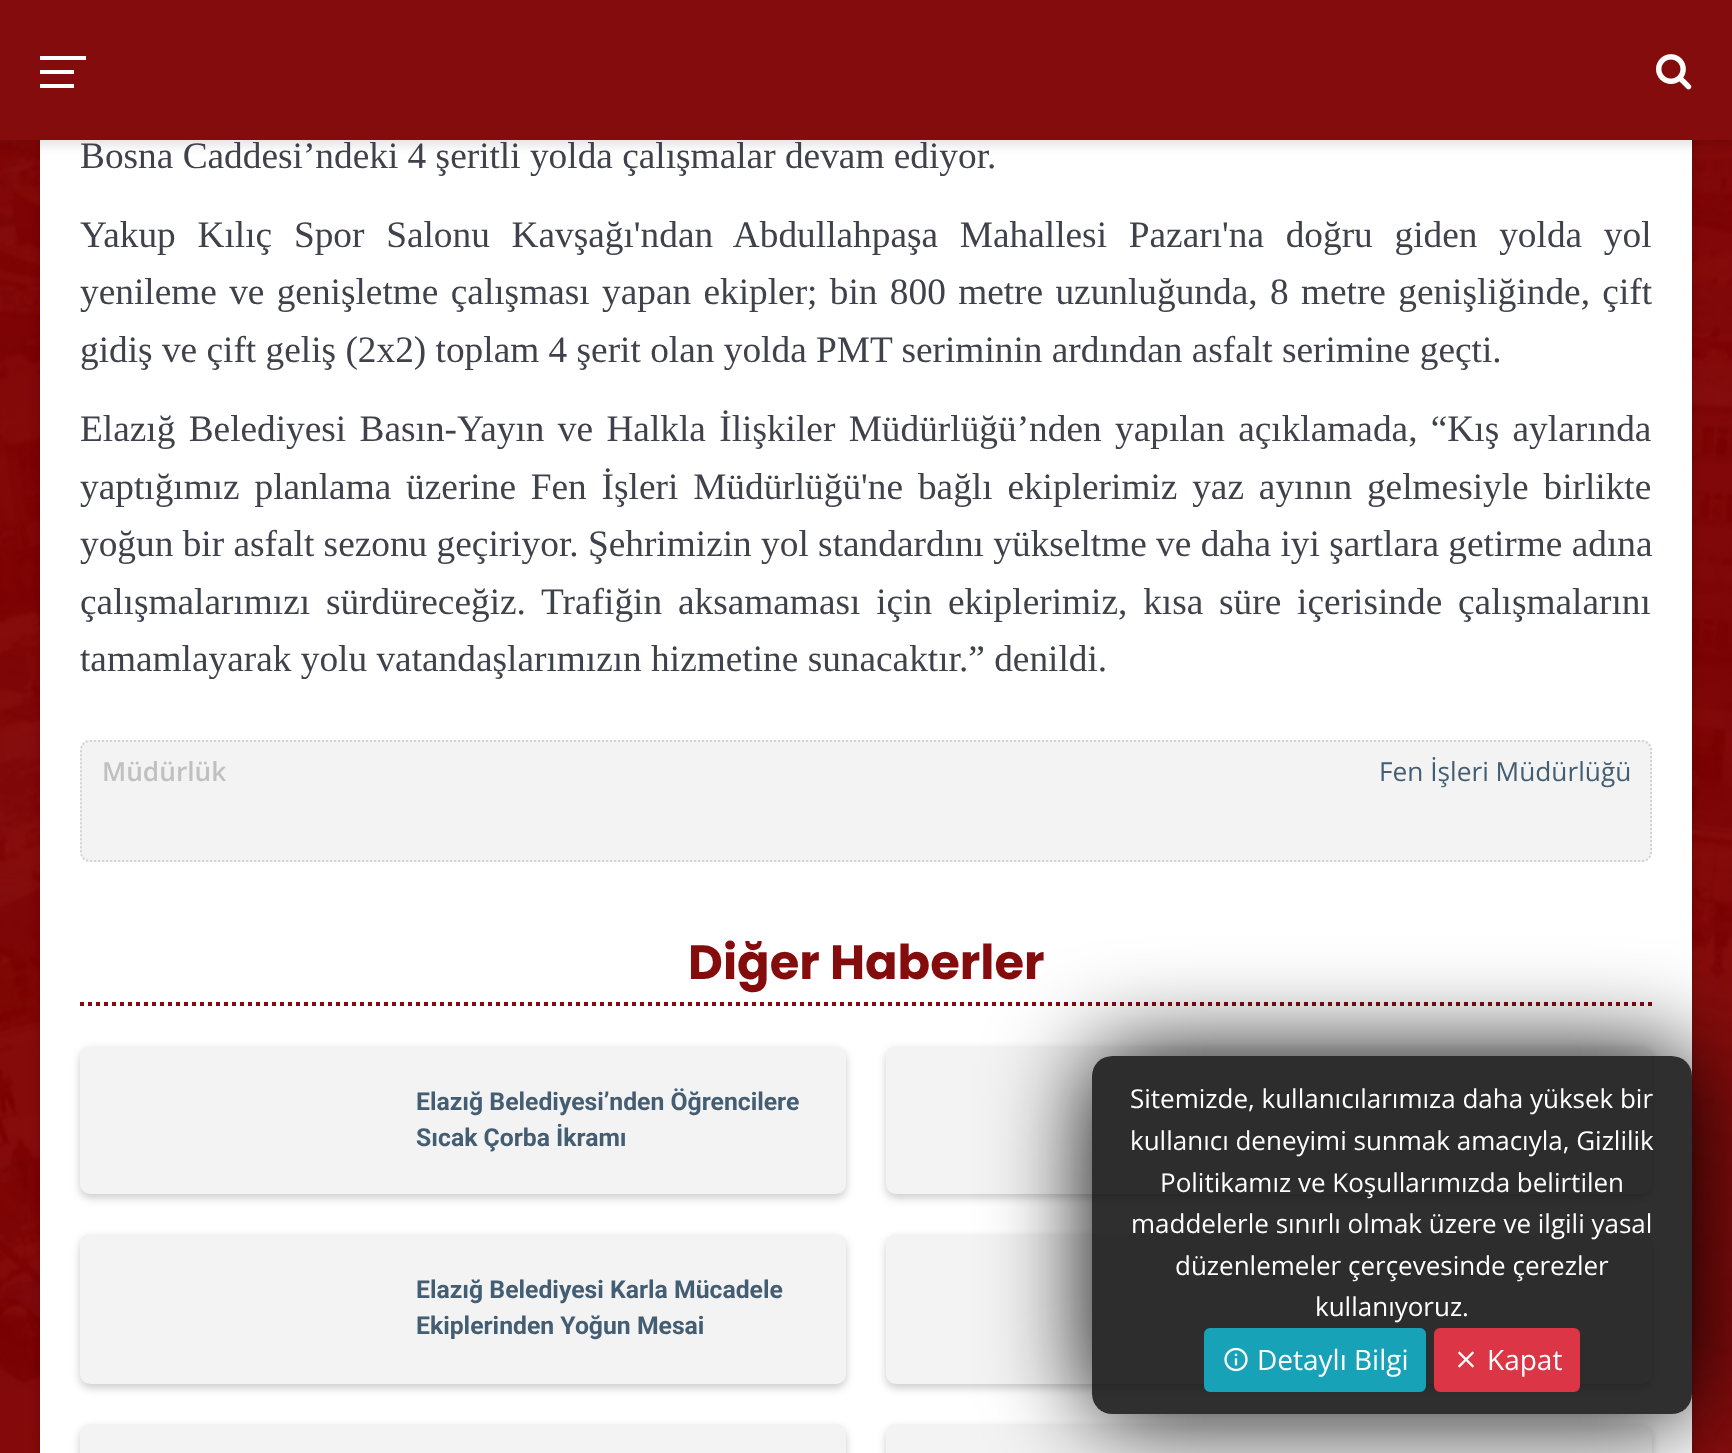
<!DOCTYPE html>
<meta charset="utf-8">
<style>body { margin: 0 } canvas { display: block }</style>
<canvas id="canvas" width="1732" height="1453"></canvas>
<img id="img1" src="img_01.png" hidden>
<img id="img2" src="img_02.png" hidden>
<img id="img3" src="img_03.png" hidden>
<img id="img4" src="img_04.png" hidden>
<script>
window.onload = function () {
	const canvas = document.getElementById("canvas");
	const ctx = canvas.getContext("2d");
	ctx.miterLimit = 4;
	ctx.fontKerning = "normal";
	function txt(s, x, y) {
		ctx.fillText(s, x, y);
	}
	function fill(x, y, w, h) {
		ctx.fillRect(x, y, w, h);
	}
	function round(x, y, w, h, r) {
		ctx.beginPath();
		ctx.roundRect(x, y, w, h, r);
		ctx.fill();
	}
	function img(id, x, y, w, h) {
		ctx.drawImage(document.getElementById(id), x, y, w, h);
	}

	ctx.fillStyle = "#FFFFFF";
	fill(0, 0, 1732, 1453);
	img("img1", 0, 140, 1732, 1313);
	ctx.fillStyle = "rgba(0, 0, 0, 0.2)";
	ctx.filter = "blur(4px)";
	ctx.beginPath();
	ctx.roundRect(40, -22, 1652, 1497, 10);
	ctx.fill();
	ctx.filter = "none";
	ctx.fillStyle = "#FFFFFF";
	fill(40, 140, 1652, 1313);
	ctx.fillStyle = "rgba(0, 0, 0, 0.1)";
	ctx.filter = "blur(5px)";
	ctx.beginPath();
	ctx.rect(-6, -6, 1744, 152);
	ctx.fill();
	ctx.filter = "none";
	ctx.fillStyle = "#840C0D";
	fill(0, 0, 1732, 140);
	ctx.fillStyle = "#FFFFFF";
	fill(40, 70, 34, 4);
	fill(40, 56, 46, 4);
	fill(40, 84, 34, 4);
	img("img2", 1656, 54, 36, 36);
	ctx.fillStyle = "#F3F3F3";
	round(80, 740, 1572, 122, 10);
	ctx.beginPath();
	ctx.moveTo(90, 741);
	ctx.lineTo(1642, 741);
	ctx.bezierCurveTo(1647, 741, 1651, 745, 1651, 750);
	ctx.lineTo(1651, 852);
	ctx.bezierCurveTo(1651, 857, 1647, 861, 1642, 861);
	ctx.lineTo(90, 861);
	ctx.bezierCurveTo(85, 861, 81, 857, 81, 852);
	ctx.lineTo(81, 750);
	ctx.bezierCurveTo(81, 745, 85, 741, 90, 741);
	ctx.closePath();
	ctx.strokeStyle = "#D3D3D3";
	ctx.lineWidth = 2;
	ctx.setLineDash([2, 2]);
	ctx.stroke();
	ctx.beginPath();
	ctx.moveTo(80, 1004);
	ctx.lineTo(1652, 1004);
	ctx.strokeStyle = "#840C0D";
	ctx.lineWidth = 4;
	ctx.setLineDash([4, 4]);
	ctx.stroke();
	ctx.fillStyle = "rgba(0, 0, 0, 0.2)";
	ctx.filter = "blur(4px)";
	ctx.beginPath();
	ctx.roundRect(80, 1050, 766, 148, 10);
	ctx.fill();
	ctx.filter = "none";
	ctx.fillStyle = "#F3F3F3";
	round(80, 1046, 766, 148, 10);
	ctx.fillStyle = "rgba(0, 0, 0, 0.2)";
	ctx.filter = "blur(4px)";
	ctx.beginPath();
	ctx.roundRect(886, 1050, 766, 148, 10);
	ctx.fill();
	ctx.filter = "none";
	ctx.fillStyle = "#F3F3F3";
	round(886, 1046, 766, 148, 10);
	ctx.fillStyle = "rgba(0, 0, 0, 0.2)";
	ctx.filter = "blur(4px)";
	ctx.beginPath();
	ctx.roundRect(80, 1238, 766, 150, 10);
	ctx.fill();
	ctx.filter = "none";
	ctx.fillStyle = "#F3F3F3";
	round(80, 1234, 766, 150, 10);
	ctx.fillStyle = "rgba(0, 0, 0, 0.2)";
	ctx.filter = "blur(4px)";
	ctx.beginPath();
	ctx.roundRect(886, 1238, 766, 150, 10);
	ctx.fill();
	ctx.filter = "none";
	ctx.fillStyle = "#F3F3F3";
	round(886, 1234, 766, 150, 10);
	ctx.fillStyle = "rgba(0, 0, 0, 0.2)";
	ctx.filter = "blur(4px)";
	ctx.beginPath();
	ctx.roundRect(80, 1428, 766, 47, 10);
	ctx.fill();
	ctx.filter = "none";
	ctx.fillStyle = "#F3F3F3";
	round(80, 1424, 766, 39, 10);
	ctx.fillStyle = "rgba(0, 0, 0, 0.2)";
	ctx.filter = "blur(4px)";
	ctx.beginPath();
	ctx.roundRect(886, 1428, 766, 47, 10);
	ctx.fill();
	ctx.filter = "none";
	ctx.fillStyle = "#F3F3F3";
	round(886, 1424, 766, 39, 10);
	ctx.save();
	ctx.beginPath();
	ctx.moveTo(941, 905);
	ctx.lineTo(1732, 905);
	ctx.lineTo(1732, 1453);
	ctx.lineTo(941, 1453);
	ctx.closePath();
	ctx.moveTo(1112, 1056);
	ctx.lineTo(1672, 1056);
	ctx.bezierCurveTo(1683, 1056, 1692, 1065, 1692, 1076);
	ctx.lineTo(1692, 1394);
	ctx.bezierCurveTo(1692, 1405, 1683, 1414, 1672, 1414);
	ctx.lineTo(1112, 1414);
	ctx.bezierCurveTo(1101, 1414, 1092, 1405, 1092, 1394);
	ctx.lineTo(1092, 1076);
	ctx.bezierCurveTo(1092, 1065, 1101, 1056, 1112, 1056);
	ctx.closePath();
	ctx.clip("evenodd");
	ctx.fillStyle = "#000000";
	ctx.filter = "blur(50px)";
	ctx.beginPath();
	ctx.roundRect(1092, 1056, 600, 358, 20);
	ctx.fill();
	ctx.filter = "none";
	ctx.restore();
	ctx.fillStyle = "rgba(5, 5, 5, 0.83)";
	round(1092, 1056, 600, 358, 20);
	ctx.fillStyle = "#17A2B8";
	ctx.beginPath();
	ctx.roundRect(1205, 1329, 220, 62, 5);
	ctx.fill();
	ctx.strokeStyle = "#17A2B8";
	ctx.lineWidth = 2;
	ctx.setLineDash([]);
	ctx.stroke();
	img("img3", 1224, 1347, 24, 25);
	ctx.fillStyle = "#DC3545";
	ctx.beginPath();
	ctx.roundRect(1435, 1329, 144, 62, 5);
	ctx.fill();
	ctx.strokeStyle = "#DC3545";
	ctx.stroke();
	img("img4", 1458, 1351, 16, 17);
	ctx.font = "37.35px Liberation Serif";
	ctx.fillStyle = "#3F424B";
	txt("Bosna Caddesi’ndeki 4 şeritli yolda çalışmalar devam ediyor.", 80, 168);
	ctx.wordSpacing = "12.4px";
	txt("Yakup Kılıç Spor Salonu Kavşağı'ndan Abdullahpaşa Mahallesi Pazarı'na doğru giden yolda yol", 80, 247);
	ctx.wordSpacing = "3px";
	txt("yenileme ve genişletme çalışması yapan ekipler; bin 800 metre uzunluğunda, 8 metre genişliğinde, çift", 80, 304);
	ctx.wordSpacing = "0px";
	txt("gidiş ve çift geliş (2x2) toplam 4 şerit olan yolda PMT seriminin ardından asfalt serimine geçti.", 80, 362);
	ctx.wordSpacing = "4px";
	txt("Elazığ Belediyesi Basın-Yayın ve Halkla İlişkiler Müdürlüğü’nden yapılan açıklamada, “Kış aylarında", 80, 441);
	ctx.wordSpacing = "5.5px";
	txt("yaptığımız planlama üzerine Fen İşleri Müdürlüğü'ne bağlı ekiplerimiz yaz ayının gelmesiyle birlikte", 80, 499);
	ctx.wordSpacing = "0px";
	txt("yoğun bir asfalt sezonu geçiriyor. Şehrimizin yol standardını yükseltme ve daha iyi şartlara getirme adına", 80, 556);
	ctx.wordSpacing = "6.5px";
	txt("çalışmalarımızı sürdüreceğiz. Trafiğin aksamaması için ekiplerimiz, kısa süre içerisinde çalışmalarını", 80, 614);
	ctx.wordSpacing = "0px";
	txt("tamamlayarak yolu vatandaşlarımızın hizmetine sunacaktır.” denildi.", 80, 671);
	ctx.font = "600 26.25px Open Sans";
	ctx.fillStyle = "#C0C0C0";
	txt("Müdürlük", 102, 781);
	ctx.font = "26.25px Open Sans";
	ctx.fillStyle = "#435D73";
	txt("Fen İşleri Müdürlüğü", 1379, 781);
	ctx.font = "bold 48px Poppins";
	ctx.fillStyle = "#840C0D";
	txt("Diğer Haberler", 688, 979);
	ctx.font = "bold 24.75px Roboto";
	ctx.fillStyle = "#435D73";
	txt("Elazığ Belediyesi’nden Öğrencilere", 416, 1110);
	txt("Sıcak Çorba İkramı", 416, 1146);
	txt("Elazığ Belediyesi Karla Mücadele", 416, 1298);
	txt("Ekiplerinden Yoğun Mesai", 416, 1334);
	ctx.font = "26px Open Sans";
	ctx.fillStyle = "#FFFFFF";
	txt("Sitemizde, kullanıcılarımıza daha yüksek bir", 1130, 1108);
	txt("kullanıcı deneyimi sunmak amacıyla, Gizlilik", 1130, 1150);
	txt("Politikamız ve Koşullarımızda belirtilen", 1160, 1192);
	txt("maddelerle sınırlı olmak üzere ve ilgili yasal", 1131, 1233);
	txt("düzenlemeler çerçevesinde çerezler", 1175, 1275);
	txt("kullanıyoruz.", 1315, 1316);
	ctx.font = "28px Open Sans";
	txt("Detaylı Bilgi", 1257, 1370);
	txt("Kapat", 1487, 1370);
};
</script>
